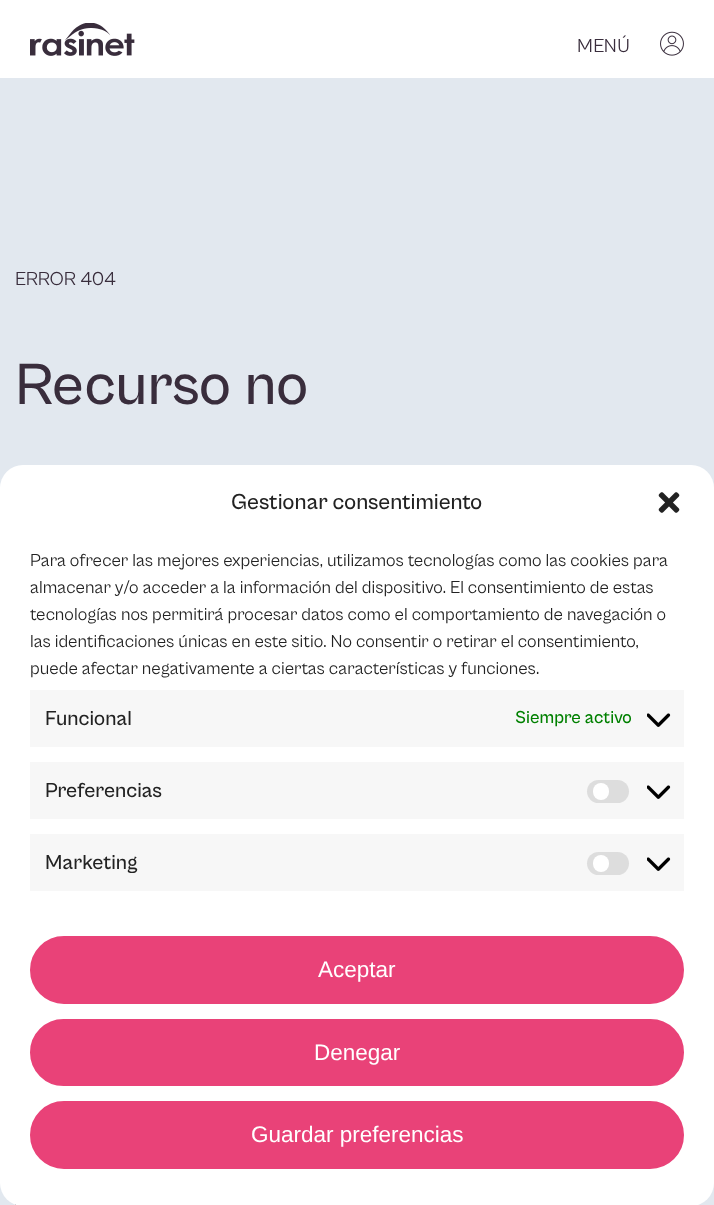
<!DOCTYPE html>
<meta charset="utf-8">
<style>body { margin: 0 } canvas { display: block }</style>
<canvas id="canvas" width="714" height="1205"></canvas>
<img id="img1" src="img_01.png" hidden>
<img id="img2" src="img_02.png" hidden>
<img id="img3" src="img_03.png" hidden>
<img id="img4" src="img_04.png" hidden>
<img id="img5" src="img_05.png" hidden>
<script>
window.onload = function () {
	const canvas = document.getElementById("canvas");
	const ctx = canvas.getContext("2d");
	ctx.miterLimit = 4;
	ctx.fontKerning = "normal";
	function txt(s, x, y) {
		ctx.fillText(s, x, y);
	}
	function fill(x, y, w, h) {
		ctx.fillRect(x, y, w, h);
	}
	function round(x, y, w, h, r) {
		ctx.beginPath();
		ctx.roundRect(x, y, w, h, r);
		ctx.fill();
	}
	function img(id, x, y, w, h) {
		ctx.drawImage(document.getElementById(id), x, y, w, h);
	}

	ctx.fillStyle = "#E2E8EF";
	fill(0, 0, 714, 1205);
	ctx.fillStyle = "#FFFFFF";
	fill(0, 0, 714, 78);
	img("img1", 30, 23, 105, 33);
	img("img2", 660, 31, 24, 25);
	img("img3", 15, 1204, 2, 1);
	round(0, 465, 714, 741, 23);
	img("img4", 658, 492, 22, 21);
	ctx.fillStyle = "#F7F7F7";
	fill(30, 690, 654, 57);
	img("img5", 647, 713, 24, 14);
	fill(30, 762, 654, 57);
	ctx.fillStyle = "#DDDDDD";
	round(587, 780, 42, 23, 11.5);
	ctx.fillStyle = "#FFFFFF";
	round(593, 783, 16, 17, 8);
	img("img5", 647, 785, 24, 14);
	ctx.fillStyle = "#F7F7F7";
	fill(30, 834, 654, 57);
	ctx.fillStyle = "#DDDDDD";
	round(587, 852, 42, 23, 11.5);
	ctx.fillStyle = "#FFFFFF";
	round(593, 855, 16, 17, 8);
	img("img5", 647, 857, 24, 14);
	ctx.fillStyle = "#E94278";
	ctx.beginPath();
	ctx.roundRect(31, 937, 652, 66, 33);
	ctx.fill();
	ctx.strokeStyle = "#E94278";
	ctx.lineWidth = 2;
	ctx.stroke();
	ctx.beginPath();
	ctx.roundRect(31, 1020, 652, 65, 32.5);
	ctx.fill();
	ctx.stroke();
	ctx.beginPath();
	ctx.roundRect(31, 1102, 652, 66, 33);
	ctx.fill();
	ctx.stroke();
	ctx.font = "19.5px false";
	ctx.fillStyle = "#392D3C";
	txt("MENÚ", 577, 52);
	txt("ERROR 404", 15, 285);
	ctx.font = "500 60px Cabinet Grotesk";
	txt("Recurso no", 15, 404);
	ctx.font = "500 22.5px Cabinet Grotesk";
	ctx.fillStyle = "#222222";
	txt("Gestionar consentimiento", 231, 509);
	ctx.font = "18px false";
	txt("Para ofrecer las mejores experiencias, utilizamos tecnologías como las cookies para", 30, 566);
	txt("almacenar y/o acceder a la información del dispositivo. El consentimiento de estas", 30, 593);
	txt("tecnologías nos permitirá procesar datos como el comportamiento de navegación o", 30, 620);
	txt("las identificaciones únicas en este sitio. No consentir o retirar el consentimiento,", 30, 647);
	txt("puede afectar negativamente a ciertas características y funciones.", 30, 674);
	ctx.font = "500 21px Cabinet Grotesk";
	txt("Funcional", 45, 725);
	ctx.font = "500 18px Cabinet Grotesk";
	ctx.fillStyle = "#008000";
	txt("Siempre activo", 515, 723);
	ctx.font = "500 21px Cabinet Grotesk";
	ctx.fillStyle = "#222222";
	txt("Preferencias", 45, 797);
	txt("Marketing", 45, 869);
	ctx.font = "22.5px Liberation Sans";
	ctx.fillStyle = "#FFFFFF";
	txt("Aceptar", 318, 977);
	txt("Denegar", 314, 1060);
	txt("Guardar preferencias", 251, 1142);
};
</script>
